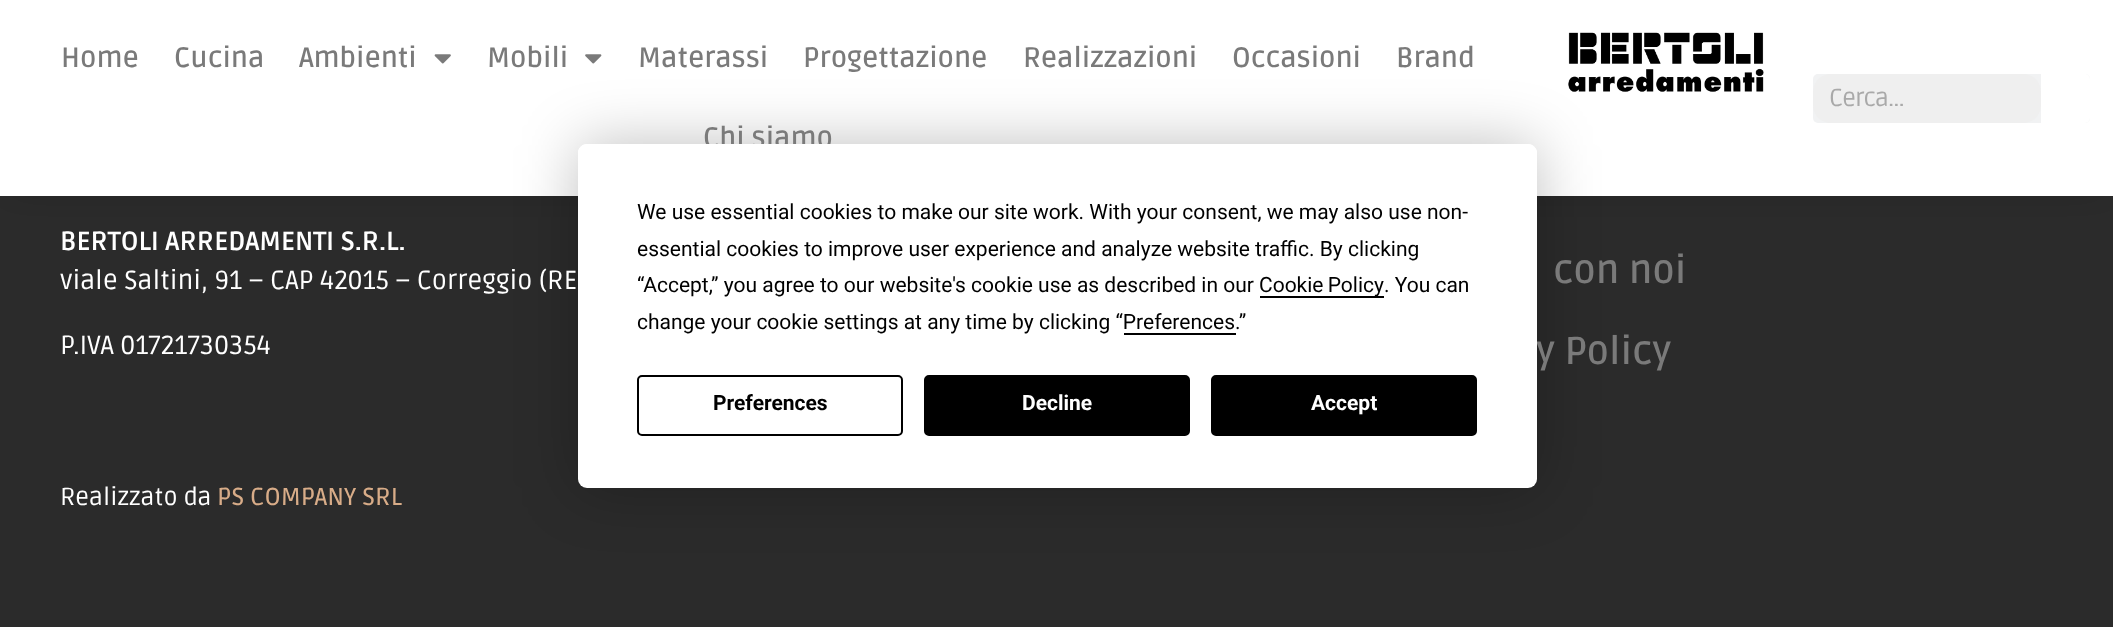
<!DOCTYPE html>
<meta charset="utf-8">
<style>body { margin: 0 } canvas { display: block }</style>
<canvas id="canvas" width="2113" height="627"></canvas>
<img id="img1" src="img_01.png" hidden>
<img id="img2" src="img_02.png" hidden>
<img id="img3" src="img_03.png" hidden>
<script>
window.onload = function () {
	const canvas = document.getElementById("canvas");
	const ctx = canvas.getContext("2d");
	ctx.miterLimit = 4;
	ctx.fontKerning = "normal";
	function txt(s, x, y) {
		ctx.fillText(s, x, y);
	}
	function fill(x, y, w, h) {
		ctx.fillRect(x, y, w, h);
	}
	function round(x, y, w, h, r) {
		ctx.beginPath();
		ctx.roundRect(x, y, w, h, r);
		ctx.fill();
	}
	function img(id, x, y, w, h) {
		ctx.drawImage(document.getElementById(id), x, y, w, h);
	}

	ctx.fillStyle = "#2B2B2B";
	fill(0, 0, 2113, 627);
	ctx.fillStyle = "rgba(0, 0, 0, 0.5)";
	ctx.filter = "blur(16.5px)";
	ctx.beginPath();
	ctx.rect(18, 18, 2079, 161);
	ctx.fill();
	ctx.filter = "none";
	ctx.fillStyle = "#FFFFFF";
	fill(0, 0, 2113, 196);
	img("img1", 434, 54, 17, 10);
	img("img2", 585, 54, 17, 10);
	img("img3", 1568, 32, 196, 60);
	ctx.fillStyle = "#F1F2F3";
	round(1813, 74, 277, 49, 5);
	ctx.fillStyle = "#EFEFEF";
	round(1813, 74, 228, 49, 18);
	ctx.fillStyle = "#FFFFFF";
	ctx.beginPath();
	ctx.roundRect(2041, 74, 49, 49, [0, 5, 5, 0]);
	ctx.fill();
	ctx.save();
	ctx.beginPath();
	ctx.moveTo(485, 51);
	ctx.lineTo(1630, 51);
	ctx.lineTo(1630, 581);
	ctx.lineTo(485, 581);
	ctx.closePath();
	ctx.moveTo(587, 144);
	ctx.lineTo(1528, 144);
	ctx.bezierCurveTo(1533, 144, 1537, 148, 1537, 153);
	ctx.lineTo(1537, 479);
	ctx.bezierCurveTo(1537, 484, 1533, 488, 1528, 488);
	ctx.lineTo(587, 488);
	ctx.bezierCurveTo(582, 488, 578, 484, 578, 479);
	ctx.lineTo(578, 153);
	ctx.bezierCurveTo(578, 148, 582, 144, 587, 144);
	ctx.closePath();
	ctx.clip("evenodd");
	ctx.fillStyle = "rgba(0, 0, 0, 0.25)";
	ctx.filter = "blur(30.5px)";
	ctx.beginPath();
	ctx.roundRect(578, 144, 959, 344, 9);
	ctx.fill();
	ctx.filter = "none";
	ctx.restore();
	ctx.font = "600 28px Ruda";
	ctx.fillStyle = "#7A7A7A";
	txt("Home", 61, 67);
	txt("Cucina", 174, 67);
	txt("Ambienti", 299, 67);
	txt("Mobili", 487, 67);
	txt("Materassi", 638, 67);
	txt("Progettazione", 803, 67);
	txt("Realizzazioni", 1023, 67);
	txt("Occasioni", 1232, 67);
	txt("Brand", 1396, 67);
	txt("Chi siamo", 703, 147);
	ctx.letterSpacing = "-1px";
	ctx.font = "24.5px Ruda";
	ctx.fillStyle = "#A9A9A9";
	txt("Cerca...", 1829, 106);
	ctx.letterSpacing = "0px";
	ctx.font = "bold 26.25px Ruda";
	ctx.fillStyle = "#FFFFFF";
	txt("BERTOLI ARREDAMENTI S.R.L.", 60, 250);
	ctx.font = "26.25px Ruda";
	txt("viale Saltini, 91 – CAP 42015 – Correggio (RE", 60, 289);
	txt("P.IVA 01721730354", 60, 354);
	ctx.font = "600 38.5px Ruda";
	ctx.fillStyle = "#7A7A7A";
	txt("con noi", 1553, 283);
	txt("y Policy", 1536, 364);
	ctx.fillStyle = "#FFFFFF";
	round(578, 144, 959, 344, 9);
	ctx.fillStyle = "#000000";
	ctx.beginPath();
	ctx.roundRect(1212, 376, 264, 59, 4);
	ctx.fill();
	ctx.strokeStyle = "#000000";
	ctx.lineWidth = 2;
	ctx.stroke();
	ctx.font = "bold 21px Roboto";
	ctx.fillStyle = "#FFFFFF";
	txt("Accept", 1311, 410);
	ctx.fillStyle = "#000000";
	ctx.beginPath();
	ctx.roundRect(925, 376, 264, 59, 4);
	ctx.fill();
	ctx.stroke();
	ctx.fillStyle = "#FFFFFF";
	txt("Decline", 1022, 410);
	ctx.beginPath();
	ctx.roundRect(638, 376, 264, 59, 4);
	ctx.stroke();
	ctx.fillStyle = "#000000";
	txt("Preferences", 713, 410);
	fill(1124, 333, 112, 2);
	ctx.font = "21px Roboto";
	txt("change your cookie settings at any time by clicking “Preferences.”", 637, 329);
	txt(". You can", 1384, 292);
	fill(1260, 296, 124, 2);
	ctx.wordSpacing = "-1px";
	txt("Cookie Policy", 1259, 292);
	ctx.wordSpacing = "0px";
	txt("“Accept,” you agree to our website's cookie use as described in our", 637, 292);
	txt("essential cookies to improve user experience and analyze website traffic. By clicking", 637, 256);
	txt("We use essential cookies to make our site work. With your consent, we may also use non-", 637, 219);
	ctx.font = "24.5px Ruda";
	ctx.fillStyle = "#FFFFFF";
	txt("Realizzato da", 60, 505);
	ctx.font = "500 24.5px Ruda";
	ctx.fillStyle = "#D8AC88";
	txt("PS COMPANY SRL", 217, 505);
};
</script>
